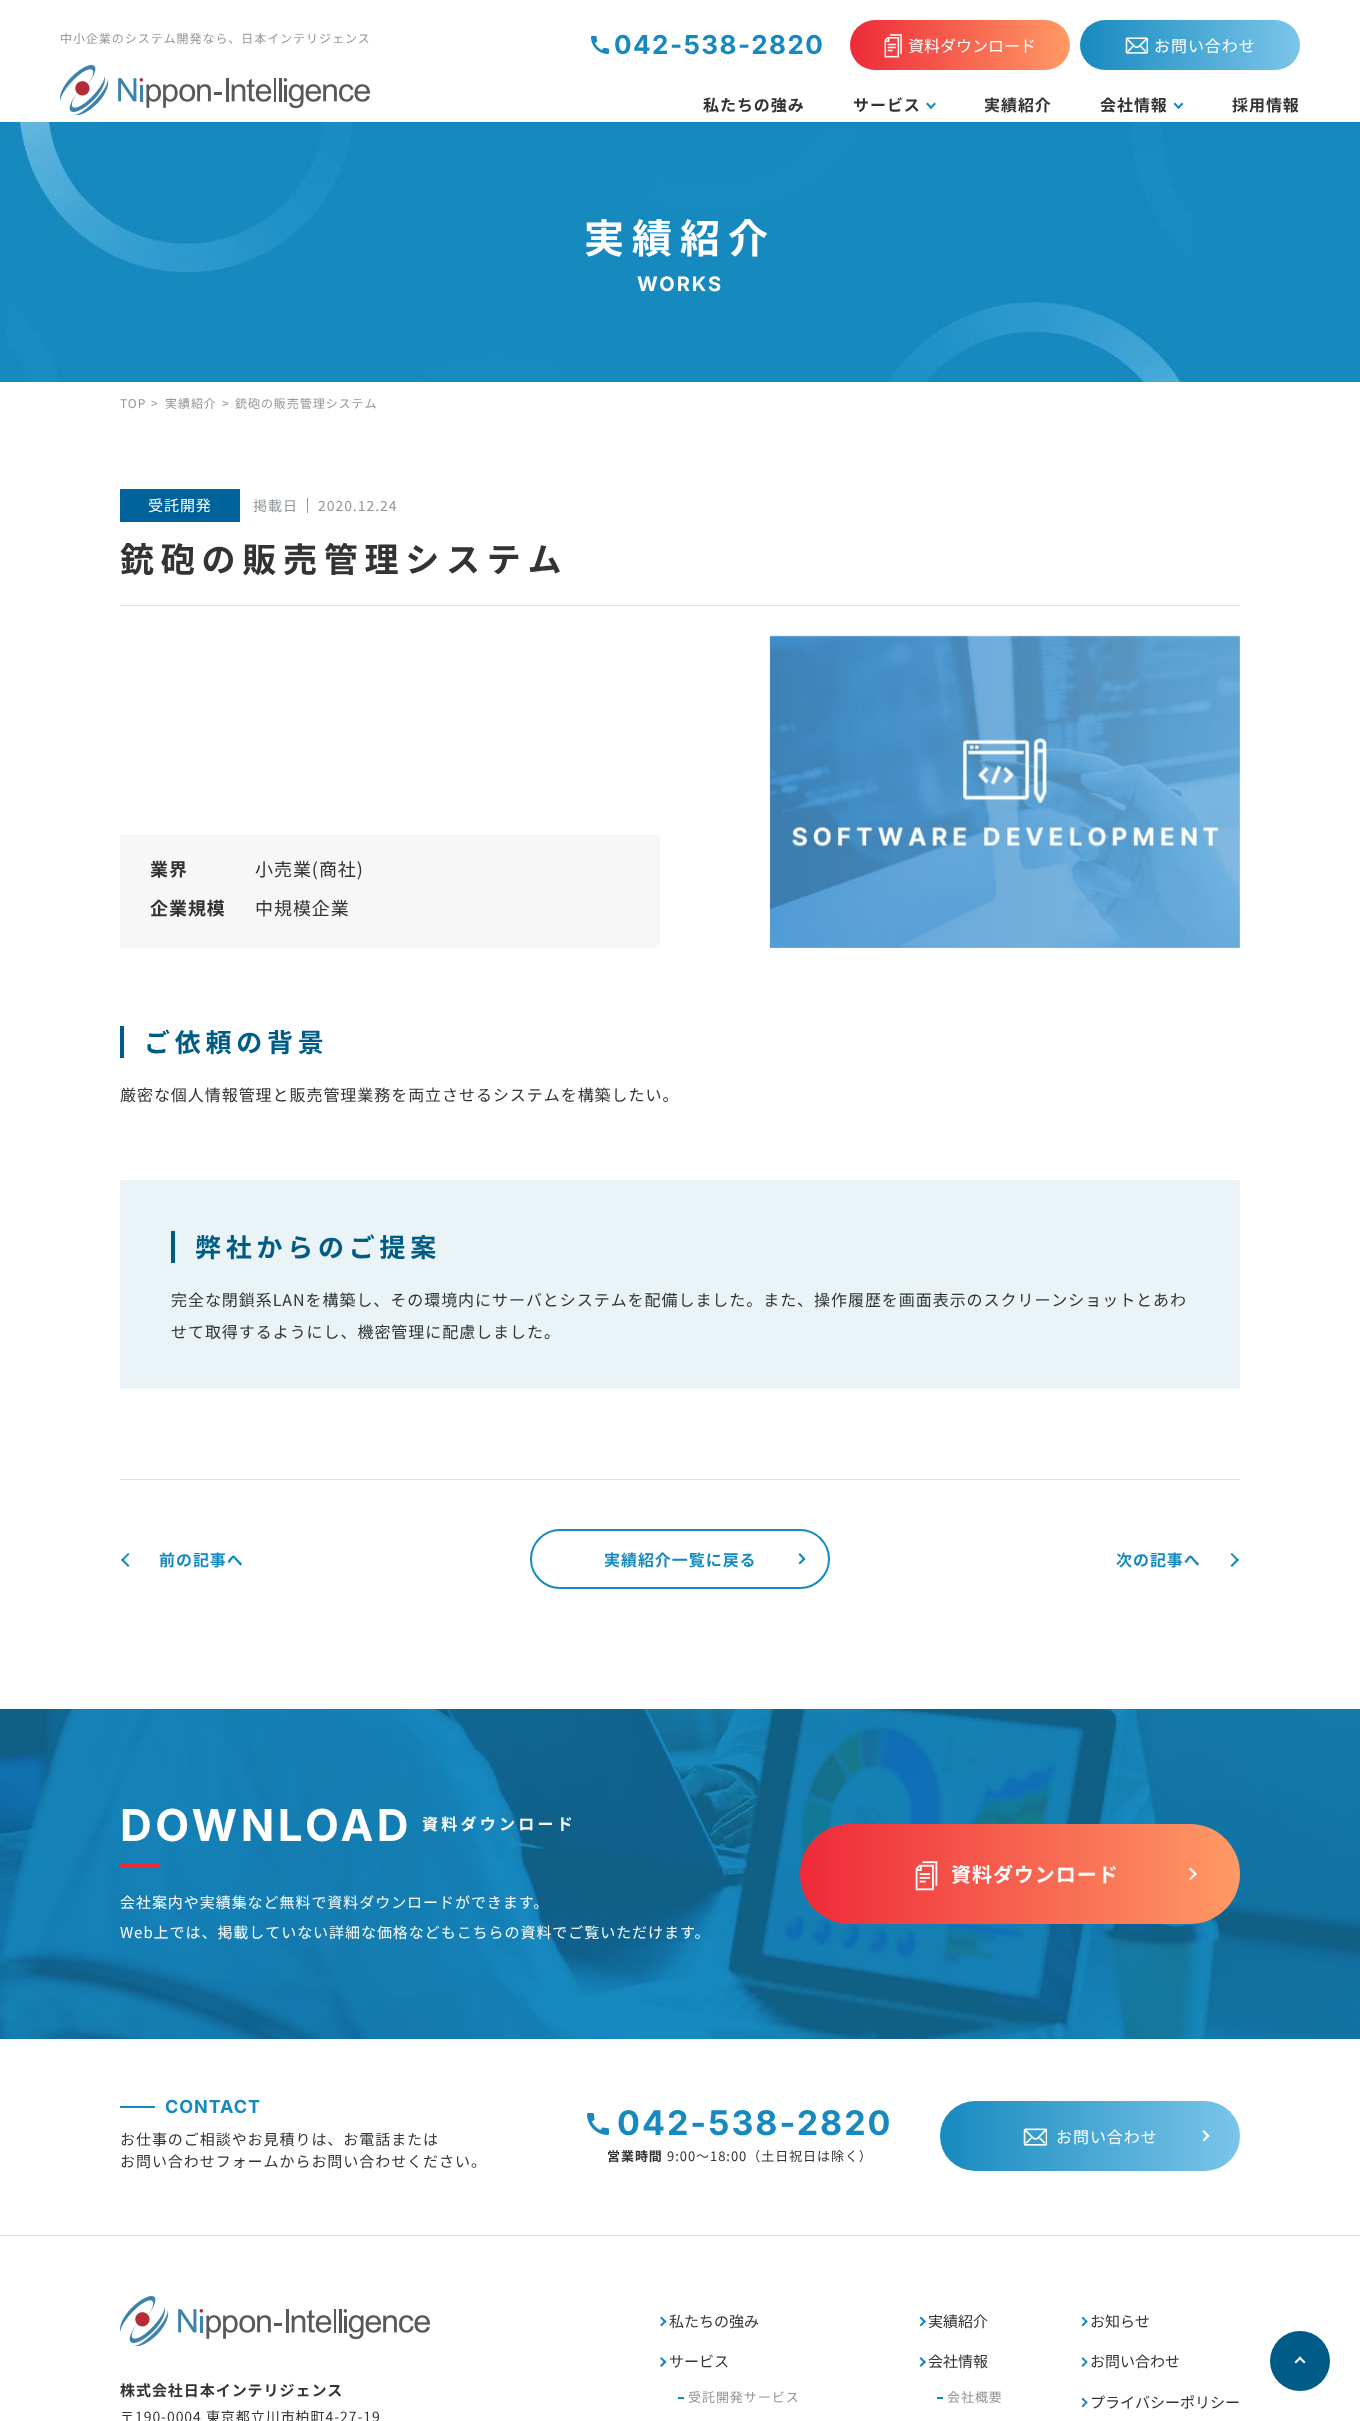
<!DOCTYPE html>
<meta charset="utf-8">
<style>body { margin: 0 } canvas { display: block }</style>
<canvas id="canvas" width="1360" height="2421"></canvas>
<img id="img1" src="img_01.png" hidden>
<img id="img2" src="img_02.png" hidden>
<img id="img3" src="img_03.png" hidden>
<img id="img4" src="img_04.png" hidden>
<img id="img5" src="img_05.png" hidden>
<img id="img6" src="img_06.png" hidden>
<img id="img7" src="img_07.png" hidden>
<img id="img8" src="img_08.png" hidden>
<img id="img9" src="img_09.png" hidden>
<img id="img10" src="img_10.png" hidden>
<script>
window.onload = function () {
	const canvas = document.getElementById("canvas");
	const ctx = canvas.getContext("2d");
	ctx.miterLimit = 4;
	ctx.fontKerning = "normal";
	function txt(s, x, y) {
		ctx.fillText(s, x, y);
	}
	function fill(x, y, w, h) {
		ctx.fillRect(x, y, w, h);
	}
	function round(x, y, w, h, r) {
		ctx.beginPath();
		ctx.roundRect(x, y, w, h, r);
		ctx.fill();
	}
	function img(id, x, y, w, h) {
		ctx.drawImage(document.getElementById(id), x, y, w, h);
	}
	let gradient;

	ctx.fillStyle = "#FFFFFF";
	fill(0, 0, 1360, 2421);
	img("img1", 60, 65, 310, 50);
	img("img2", 591, 36, 18, 18);
	gradient = ctx.createLinearGradient(850, 45, 1070, 45);
	gradient.addColorStop(0, "#EE2A39");
	gradient.addColorStop(1, "#FF9A65");
	ctx.fillStyle = gradient;
	round(850, 20, 220, 50, 25);
	img("img3", 884, 34, 18, 24);
	gradient = ctx.createLinearGradient(1080, 45, 1300, 45);
	gradient.addColorStop(0, "#178ABF");
	gradient.addColorStop(1, "#7BC5E9");
	ctx.fillStyle = gradient;
	round(1080, 20, 220, 50, 25);
	img("img4", 1125, 37, 23, 17);
	ctx.fillStyle = "#1689BF";
	ctx.beginPath();
	ctx.moveTo(936, 104);
	ctx.lineTo(931, 109);
	ctx.lineTo(929.5, 107.5);
	ctx.lineTo(934.5, 102.5);
	ctx.closePath();
	ctx.fill();
	ctx.beginPath();
	ctx.moveTo(932.5, 107.5);
	ctx.lineTo(931, 109);
	ctx.lineTo(926, 104);
	ctx.lineTo(927.5, 102.5);
	ctx.closePath();
	ctx.fill();
	ctx.beginPath();
	ctx.moveTo(1183.5, 104);
	ctx.lineTo(1178.5, 109);
	ctx.lineTo(1177, 107.5);
	ctx.lineTo(1182, 102.5);
	ctx.closePath();
	ctx.fill();
	ctx.beginPath();
	ctx.moveTo(1180, 107.5);
	ctx.lineTo(1178.5, 109);
	ctx.lineTo(1173.5, 104);
	ctx.lineTo(1175, 102.5);
	ctx.closePath();
	ctx.fill();
	fill(0, 122, 1360, 260);
	img("img5", 7, 122, 1185, 260);
	ctx.fillStyle = "#E1E1E1";
	fill(120, 1479, 1120, 1);
	fill(120, 605, 1120, 1);
	ctx.fillStyle = "#00629A";
	fill(120, 489, 120, 33);
	ctx.fillStyle = "#909699";
	fill(307, 498, 1, 15);
	ctx.fillStyle = "#F7F7F7";
	fill(120, 835, 540, 113);
	img("img6", 770, 635, 470, 313);
	ctx.fillStyle = "#005B86";
	fill(120, 1026, 4, 32);
	ctx.fillStyle = "#EAF4F6";
	fill(120, 1180, 1120, 209);
	ctx.fillStyle = "#005B86";
	fill(171, 1231, 4, 32);
	ctx.fillStyle = "#1689BF";
	ctx.beginPath();
	ctx.moveTo(122.5, 1558.5);
	ctx.lineTo(129.5, 1565.5);
	ctx.lineTo(128, 1567);
	ctx.lineTo(121, 1560);
	ctx.closePath();
	ctx.fill();
	ctx.beginPath();
	ctx.moveTo(128, 1553);
	ctx.lineTo(129.5, 1554);
	ctx.lineTo(122.5, 1561.5);
	ctx.lineTo(121, 1560);
	ctx.closePath();
	ctx.fill();
	ctx.beginPath();
	ctx.roundRect(531, 1530, 298, 58, 29);
	ctx.strokeStyle = "#1689BF";
	ctx.lineWidth = 2;
	ctx.stroke();
	ctx.beginPath();
	ctx.moveTo(800, 1553);
	ctx.lineTo(805.5, 1559);
	ctx.lineTo(804, 1560.5);
	ctx.lineTo(798.5, 1554.5);
	ctx.closePath();
	ctx.fill();
	ctx.beginPath();
	ctx.moveTo(804, 1557.5);
	ctx.lineTo(805.5, 1559);
	ctx.lineTo(800, 1564.5);
	ctx.lineTo(798.5, 1563);
	ctx.closePath();
	ctx.fill();
	ctx.beginPath();
	ctx.moveTo(1232, 1553);
	ctx.lineTo(1239, 1560);
	ctx.lineTo(1237.5, 1561.5);
	ctx.lineTo(1230.5, 1554);
	ctx.closePath();
	ctx.fill();
	ctx.beginPath();
	ctx.moveTo(1237.5, 1558.5);
	ctx.lineTo(1239, 1560);
	ctx.lineTo(1232, 1567);
	ctx.lineTo(1230.5, 1565.5);
	ctx.closePath();
	ctx.fill();
	img("img7", 0, 1709, 1360, 330);
	ctx.fillStyle = "#EE2939";
	fill(120, 1863, 40, 4);
	gradient = ctx.createLinearGradient(800, 1874, 1240, 1874);
	gradient.addColorStop(0, "#EE2A39");
	gradient.addColorStop(1, "#FF9A65");
	ctx.fillStyle = gradient;
	round(800, 1824, 440, 100, 50);
	img("img8", 915, 1861, 23, 30);
	ctx.fillStyle = "#FFFFFF";
	ctx.beginPath();
	ctx.moveTo(1190.5, 1867.5);
	ctx.lineTo(1197, 1874);
	ctx.lineTo(1195.5, 1875.5);
	ctx.lineTo(1189, 1869);
	ctx.closePath();
	ctx.fill();
	ctx.beginPath();
	ctx.moveTo(1195.5, 1872.5);
	ctx.lineTo(1197, 1874);
	ctx.lineTo(1190.5, 1880);
	ctx.lineTo(1189, 1879);
	ctx.closePath();
	ctx.fill();
	ctx.fillStyle = "#1689BF";
	fill(120, 2106, 35, 2);
	img("img9", 587, 2113, 22, 22);
	gradient = ctx.createLinearGradient(940, 2136, 1240, 2136);
	gradient.addColorStop(0, "#178ABF");
	gradient.addColorStop(1, "#7BC5E9");
	ctx.fillStyle = gradient;
	round(940, 2101, 300, 70, 35);
	img("img10", 1023, 2128, 24, 18);
	ctx.fillStyle = "#FFFFFF";
	ctx.beginPath();
	ctx.moveTo(1204, 2130);
	ctx.lineTo(1209.5, 2136);
	ctx.lineTo(1208, 2137.5);
	ctx.lineTo(1202.5, 2131.5);
	ctx.closePath();
	ctx.fill();
	ctx.beginPath();
	ctx.moveTo(1208, 2134.5);
	ctx.lineTo(1209.5, 2136);
	ctx.lineTo(1204, 2141.5);
	ctx.lineTo(1202.5, 2140);
	ctx.closePath();
	ctx.fill();
	ctx.fillStyle = "#E1E1E1";
	fill(0, 2235, 1360, 1);
	img("img1", 120, 2296, 310, 50);
	ctx.fillStyle = "#1689BF";
	ctx.beginPath();
	ctx.moveTo(661.5, 2316.5);
	ctx.lineTo(666.5, 2321.5);
	ctx.lineTo(665, 2323);
	ctx.lineTo(660, 2318);
	ctx.closePath();
	ctx.fill();
	ctx.beginPath();
	ctx.moveTo(665, 2320);
	ctx.lineTo(666.5, 2321.5);
	ctx.lineTo(661.5, 2326.5);
	ctx.lineTo(660, 2325);
	ctx.closePath();
	ctx.moveTo(661.5, 2357);
	ctx.lineTo(666.5, 2362);
	ctx.lineTo(665, 2363.5);
	ctx.lineTo(660, 2358.5);
	ctx.closePath();
	ctx.fill();
	ctx.beginPath();
	ctx.moveTo(665, 2360.5);
	ctx.lineTo(666.5, 2362);
	ctx.lineTo(661.5, 2367);
	ctx.lineTo(660, 2365.5);
	ctx.closePath();
	ctx.fill();
	fill(678, 2397, 6, 2);
	ctx.beginPath();
	ctx.moveTo(921, 2316.5);
	ctx.lineTo(926, 2321.5);
	ctx.lineTo(924.5, 2323);
	ctx.lineTo(919.5, 2318);
	ctx.closePath();
	ctx.fill();
	ctx.beginPath();
	ctx.moveTo(924.5, 2320);
	ctx.lineTo(926, 2321.5);
	ctx.lineTo(921, 2326.5);
	ctx.lineTo(919.5, 2325);
	ctx.closePath();
	ctx.moveTo(921, 2357);
	ctx.lineTo(926, 2362);
	ctx.lineTo(924.5, 2363.5);
	ctx.lineTo(919.5, 2358.5);
	ctx.closePath();
	ctx.fill();
	ctx.beginPath();
	ctx.moveTo(924.5, 2360.5);
	ctx.lineTo(926, 2362);
	ctx.lineTo(921, 2367);
	ctx.lineTo(919.5, 2365.5);
	ctx.closePath();
	ctx.fill();
	fill(937, 2397, 6, 2);
	ctx.beginPath();
	ctx.moveTo(1083, 2316.5);
	ctx.lineTo(1087.5, 2321.5);
	ctx.lineTo(1086.5, 2323);
	ctx.lineTo(1081.5, 2318);
	ctx.closePath();
	ctx.fill();
	ctx.beginPath();
	ctx.moveTo(1086.5, 2320);
	ctx.lineTo(1087.5, 2321.5);
	ctx.lineTo(1083, 2326.5);
	ctx.lineTo(1081.5, 2325);
	ctx.closePath();
	ctx.moveTo(1083, 2357);
	ctx.lineTo(1087.5, 2362);
	ctx.lineTo(1086.5, 2363.5);
	ctx.lineTo(1081.5, 2358.5);
	ctx.closePath();
	ctx.fill();
	ctx.beginPath();
	ctx.moveTo(1086.5, 2360.5);
	ctx.lineTo(1087.5, 2362);
	ctx.lineTo(1083, 2367);
	ctx.lineTo(1081.5, 2365.5);
	ctx.closePath();
	ctx.moveTo(1083, 2397.5);
	ctx.lineTo(1087.5, 2402.5);
	ctx.lineTo(1086.5, 2404);
	ctx.lineTo(1081.5, 2399);
	ctx.closePath();
	ctx.fill();
	ctx.beginPath();
	ctx.moveTo(1086.5, 2401);
	ctx.lineTo(1087.5, 2402.5);
	ctx.lineTo(1083, 2407.5);
	ctx.lineTo(1081.5, 2406);
	ctx.closePath();
	ctx.fill();
	ctx.fillStyle = "#005B86";
	ctx.beginPath();
	ctx.arc(1300, 2361, 30, 0, Math.PI * 2);
	ctx.fill();
	ctx.fillStyle = "#FFFFFF";
	ctx.beginPath();
	ctx.moveTo(1294.5, 2362);
	ctx.lineTo(1300, 2356.5);
	ctx.lineTo(1301.5, 2358);
	ctx.lineTo(1296, 2363.5);
	ctx.closePath();
	ctx.fill();
	ctx.beginPath();
	ctx.moveTo(1298.5, 2358);
	ctx.lineTo(1300, 2356.5);
	ctx.lineTo(1305.5, 2362);
	ctx.lineTo(1304, 2363.5);
	ctx.closePath();
	ctx.fill();
	ctx.letterSpacing = "0.95px";
	ctx.font = "12px Noto Sans JP";
	ctx.fillStyle = "#909699";
	txt("中小企業のシステム開発なら、日本インテリジェンス", 60, 43);
	ctx.letterSpacing = "1.5px";
	ctx.font = "bold 26px Inter";
	ctx.fillStyle = "#1689BF";
	txt("042-538-2820", 614, 54);
	ctx.letterSpacing = "0px";
	ctx.font = "16px Noto Sans JP";
	ctx.fillStyle = "#FFFFFF";
	txt("資料ダウンロード", 908, 52);
	ctx.letterSpacing = "0.95px";
	txt("お問い合わせ", 1154, 52);
	ctx.font = "bold 16px Noto Sans JP";
	ctx.fillStyle = "#333333";
	txt("私たちの強み", 703, 111);
	txt("サービス", 853, 111);
	txt("実績紹介", 984, 111);
	txt("会社情報", 1100, 111);
	txt("採用情報", 1232, 111);
	ctx.letterSpacing = "8px";
	ctx.font = "bold 40px Noto Sans JP";
	ctx.fillStyle = "#FFFFFF";
	txt("実績紹介", 584, 253);
	ctx.letterSpacing = "2px";
	ctx.font = "bold 20px Inter";
	txt("WORKS", 637, 291);
	ctx.letterSpacing = "0.95px";
	ctx.font = "12px Noto Sans JP";
	ctx.fillStyle = "#909699";
	txt("TOP", 120, 408);
	txt(">", 151, 408);
	txt("実績紹介", 165, 408);
	txt(">", 222, 408);
	txt("銃砲の販売管理システム", 235, 408);
	ctx.font = "15px Noto Sans JP";
	ctx.fillStyle = "#FFFFFF";
	txt("受託開発", 148, 511);
	ctx.font = "14px Noto Sans JP";
	ctx.fillStyle = "#909699";
	txt("掲載日", 253, 511);
	txt("2020.12.24", 318, 511);
	ctx.letterSpacing = "6.75px";
	ctx.font = "bold 34px Noto Sans JP";
	ctx.fillStyle = "#333333";
	txt("銃砲の販売管理システム", 120, 572);
	ctx.letterSpacing = "0.95px";
	ctx.font = "bold 18px Noto Sans JP";
	txt("業界", 150, 876);
	ctx.font = "18px Noto Sans JP";
	txt("小売業(商社)", 255, 876);
	ctx.font = "bold 18px Noto Sans JP";
	txt("企業規模", 150, 915);
	ctx.font = "18px Noto Sans JP";
	txt("中規模企業", 255, 915);
	ctx.letterSpacing = "4.75px";
	ctx.font = "bold 26px Noto Sans JP";
	ctx.fillStyle = "#005B86";
	txt("ご依頼の背景", 144, 1052);
	ctx.letterSpacing = "0.95px";
	ctx.font = "16px Noto Sans JP";
	ctx.fillStyle = "#333333";
	txt("厳密な個人情報管理と販売管理業務を両立させるシステムを構築したい。", 120, 1101);
	ctx.letterSpacing = "4.75px";
	ctx.font = "bold 26px Noto Sans JP";
	ctx.fillStyle = "#005B86";
	txt("弊社からのご提案", 195, 1257);
	ctx.letterSpacing = "0.95px";
	ctx.font = "16px Noto Sans JP";
	ctx.fillStyle = "#333333";
	txt("完全な閉鎖系LANを構築し、その環境内にサーバとシステムを配備しました。また、操作履歴を画面表示のスクリーンショットとあわ", 171, 1306);
	txt("せて取得するようにし、機密管理に配慮しました。", 171, 1338);
	ctx.font = "bold 16px Noto Sans JP";
	ctx.fillStyle = "#1689BF";
	txt("前の記事へ", 159, 1566);
	txt("実績紹介一覧に戻る", 604, 1566);
	txt("次の記事へ", 1116, 1566);
	ctx.letterSpacing = "3.5px";
	ctx.font = "bold 44px Inter";
	ctx.fillStyle = "#FFFFFF";
	txt("DOWNLOAD", 120, 1841);
	ctx.letterSpacing = "3.25px";
	ctx.font = "bold 16px Noto Sans JP";
	txt("資料ダウンロード", 422, 1830);
	ctx.letterSpacing = "0.95px";
	ctx.font = "15px Noto Sans JP";
	txt("会社案内や実績集など無料で資料ダウンロードができます。", 120, 1908);
	txt("Web上では、掲載していない詳細な価格などもこちらの資料でご覧いただけます。", 120, 1938);
	ctx.font = "bold 20px Noto Sans JP";
	txt("資料ダウンロード", 951, 1882);
	ctx.font = "bold 18px Inter";
	ctx.fillStyle = "#1689BF";
	txt("CONTACT", 165, 2113);
	ctx.font = "15px Noto Sans JP";
	ctx.fillStyle = "#333333";
	txt("お仕事のご相談やお見積りは、お電話または", 120, 2145);
	txt("お問い合わせフォームからお問い合わせください。", 120, 2167);
	ctx.letterSpacing = "2px";
	ctx.font = "bold 34px Inter";
	ctx.fillStyle = "#1689BF";
	txt("042-538-2820", 617, 2135);
	ctx.letterSpacing = "0.95px";
	ctx.font = "bold 13px Noto Sans JP";
	ctx.fillStyle = "#333333";
	txt("営業時間", 607, 2161);
	ctx.font = "13px Noto Sans JP";
	txt("9:00～18:00（土日祝日は除く）", 667, 2161);
	ctx.font = "16px Noto Sans JP";
	ctx.fillStyle = "#FFFFFF";
	txt("お問い合わせ", 1056, 2143);
	ctx.font = "bold 15px Noto Sans JP";
	ctx.fillStyle = "#333333";
	txt("株式会社日本インテリジェンス", 120, 2396);
	ctx.font = "14px Noto Sans JP";
	txt("〒190-0004 東京都立川市柏町4-27-19", 120, 2422);
	ctx.letterSpacing = "0px";
	ctx.font = "15px Noto Sans JP";
	txt("私たちの強み", 669, 2327);
	txt("サービス", 669, 2367);
	ctx.letterSpacing = "0.95px";
	ctx.font = "13px Noto Sans JP";
	ctx.fillStyle = "#909699";
	txt("受託開発サービス", 688, 2402);
	ctx.letterSpacing = "0px";
	ctx.font = "15px Noto Sans JP";
	ctx.fillStyle = "#333333";
	txt("実績紹介", 928, 2327);
	txt("会社情報", 928, 2367);
	ctx.letterSpacing = "0.95px";
	ctx.font = "13px Noto Sans JP";
	ctx.fillStyle = "#909699";
	txt("会社概要", 947, 2402);
	ctx.letterSpacing = "0px";
	ctx.font = "15px Noto Sans JP";
	ctx.fillStyle = "#333333";
	txt("お知らせ", 1090, 2327);
	txt("お問い合わせ", 1090, 2367);
	txt("プライバシーポリシー", 1090, 2408);
};
</script>
